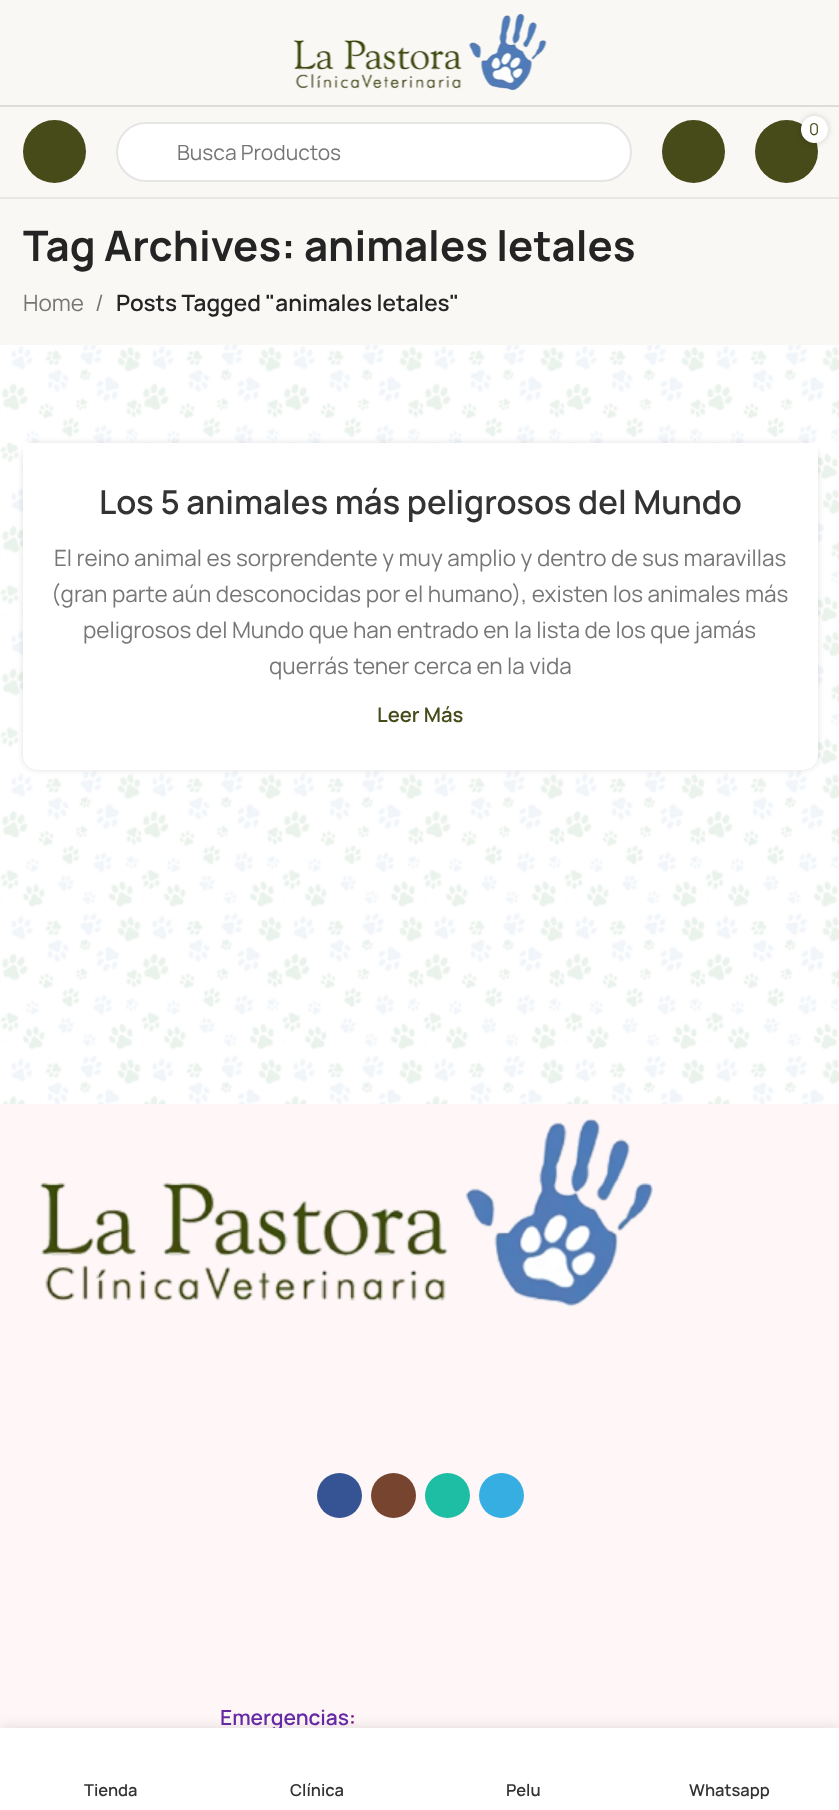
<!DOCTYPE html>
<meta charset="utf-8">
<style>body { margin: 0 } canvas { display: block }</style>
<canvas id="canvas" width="839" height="1810"></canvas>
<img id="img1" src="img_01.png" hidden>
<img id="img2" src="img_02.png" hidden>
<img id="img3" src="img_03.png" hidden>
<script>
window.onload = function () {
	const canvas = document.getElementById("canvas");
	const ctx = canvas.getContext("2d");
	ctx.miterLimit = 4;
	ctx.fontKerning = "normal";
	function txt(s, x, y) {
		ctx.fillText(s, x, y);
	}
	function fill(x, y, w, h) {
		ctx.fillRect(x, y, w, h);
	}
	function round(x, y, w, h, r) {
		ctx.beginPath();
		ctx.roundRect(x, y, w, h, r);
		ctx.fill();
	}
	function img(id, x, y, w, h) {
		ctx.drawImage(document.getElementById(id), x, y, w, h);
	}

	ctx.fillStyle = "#FFFFFF";
	fill(0, 0, 839, 1810);
	ctx.fillStyle = "#FAF8F5";
	fill(0, 0, 839, 105);
	ctx.fillStyle = "#DFDDDA";
	fill(0, 105, 839, 2);
	img("img1", 293, 13, 254, 78);
	ctx.fillStyle = "#FAF8F5";
	fill(0, 107, 839, 90);
	ctx.fillStyle = "#E8E7E4";
	fill(0, 197, 839, 2);
	ctx.fillStyle = "#474A19";
	ctx.beginPath();
	ctx.arc(54.5, 151.5, 31.5, 0, Math.PI * 2);
	ctx.fill();
	ctx.beginPath();
	ctx.arc(693.5, 151.5, 31.5, 0, Math.PI * 2);
	ctx.fill();
	ctx.beginPath();
	ctx.arc(786.5, 151.5, 31.5, 0, Math.PI * 2);
	ctx.fill();
	ctx.fillStyle = "rgba(0, 0, 0, 0.17)";
	ctx.filter = "blur(3px)";
	ctx.beginPath();
	ctx.roundRect(801, 116, 27, 27, 13.5);
	ctx.fill();
	ctx.filter = "none";
	ctx.fillStyle = "#FFFFFF";
	ctx.beginPath();
	ctx.arc(814.5, 129.5, 13.5, 0, Math.PI * 2);
	ctx.fill();
	round(116, 122, 516, 60, 30);
	ctx.beginPath();
	ctx.roundRect(117, 123, 514, 58, 29);
	ctx.strokeStyle = "rgba(0, 0, 0, 0.1)";
	ctx.lineWidth = 2;
	ctx.stroke();
	img("img2", 0, 345, 839, 759);
	ctx.fillStyle = "#FAF8F5";
	fill(0, 199, 839, 146);
	ctx.fillStyle = "rgba(0, 0, 0, 0.12)";
	ctx.filter = "blur(3px)";
	ctx.beginPath();
	ctx.roundRect(23, 443, 795, 327, 15);
	ctx.fill();
	ctx.filter = "none";
	ctx.fillStyle = "#FFFFFF";
	ctx.beginPath();
	ctx.roundRect(23, 443, 795, 327, [0, 0, 15, 15]);
	ctx.fill();
	ctx.fillStyle = "#FFF7F7";
	fill(0, 1104, 839, 624);
	img("img3", 40, 1118, 613, 189);
	ctx.fillStyle = "#365493";
	ctx.beginPath();
	ctx.arc(339.5, 1495.5, 22.5, 0, Math.PI * 2);
	ctx.fill();
	ctx.fillStyle = "#774430";
	ctx.beginPath();
	ctx.arc(393.5, 1495.5, 22.5, 0, Math.PI * 2);
	ctx.fill();
	ctx.fillStyle = "#1EBEA5";
	ctx.beginPath();
	ctx.arc(447.5, 1495.5, 22.5, 0, Math.PI * 2);
	ctx.fill();
	ctx.fillStyle = "#37AEE2";
	ctx.beginPath();
	ctx.arc(501.5, 1495.5, 22.5, 0, Math.PI * 2);
	ctx.fill();
	ctx.fillStyle = "rgba(0, 0, 0, 0.12)";
	ctx.filter = "blur(7px)";
	ctx.beginPath();
	ctx.rect(0, 1728, 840, 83);
	ctx.fill();
	ctx.filter = "none";
	ctx.font = "16.5px Manrope";
	ctx.fillStyle = "#474A19";
	txt("0", 809, 135);
	ctx.font = "21px Manrope";
	ctx.fillStyle = "#767676";
	txt("Busca Productos", 177, 160);
	ctx.font = "bold 42px Manrope";
	ctx.fillStyle = "#242424";
	txt("Tag Archives: animales letales", 23, 261);
	ctx.font = "22.5px Manrope";
	ctx.fillStyle = "#767676";
	txt("Home", 23, 311);
	txt("/", 95, 311);
	ctx.font = "600 22.5px Manrope";
	ctx.fillStyle = "#242424";
	txt("Posts Tagged \"animales letales\"", 116, 311);
	ctx.font = "600 33px Manrope";
	ctx.fillStyle = "#333333";
	txt("Los 5 animales más peligrosos del Mundo", 99, 514);
	ctx.font = "22.5px Manrope";
	ctx.fillStyle = "#767676";
	txt("El reino animal es sorprendente y muy amplio y dentro de sus maravillas", 54, 566);
	txt("(gran parte aún desconocidas por el humano), existen los animales más", 51, 602);
	txt("peligrosos del Mundo que han entrado en la lista de los que jamás", 83, 638);
	txt("querrás tener cerca en la vida", 269, 674);
	ctx.font = "600 20.25px Manrope";
	ctx.fillStyle = "#474A19";
	txt("Leer Más", 377, 722);
	ctx.font = "600 21px Manrope";
	ctx.fillStyle = "#6629A4";
	txt("Emergencias", 220, 1725);
	ctx.fillStyle = "#800080";
	txt(":", 349, 1725);
	ctx.fillStyle = "#FFFFFF";
	fill(0, 1728, 839, 82);
	ctx.font = "600 16.5px Manrope";
	ctx.fillStyle = "#333333";
	txt("Tienda", 84, 1796);
	txt("Clínica", 290, 1796);
	txt("Pelu", 506, 1796);
	ctx.save();
	ctx.beginPath();
	ctx.rect(642, 1779, 176, 20);
	ctx.clip();
	txt("Whatsapp", 689, 1796);
	ctx.restore();
};
</script>
